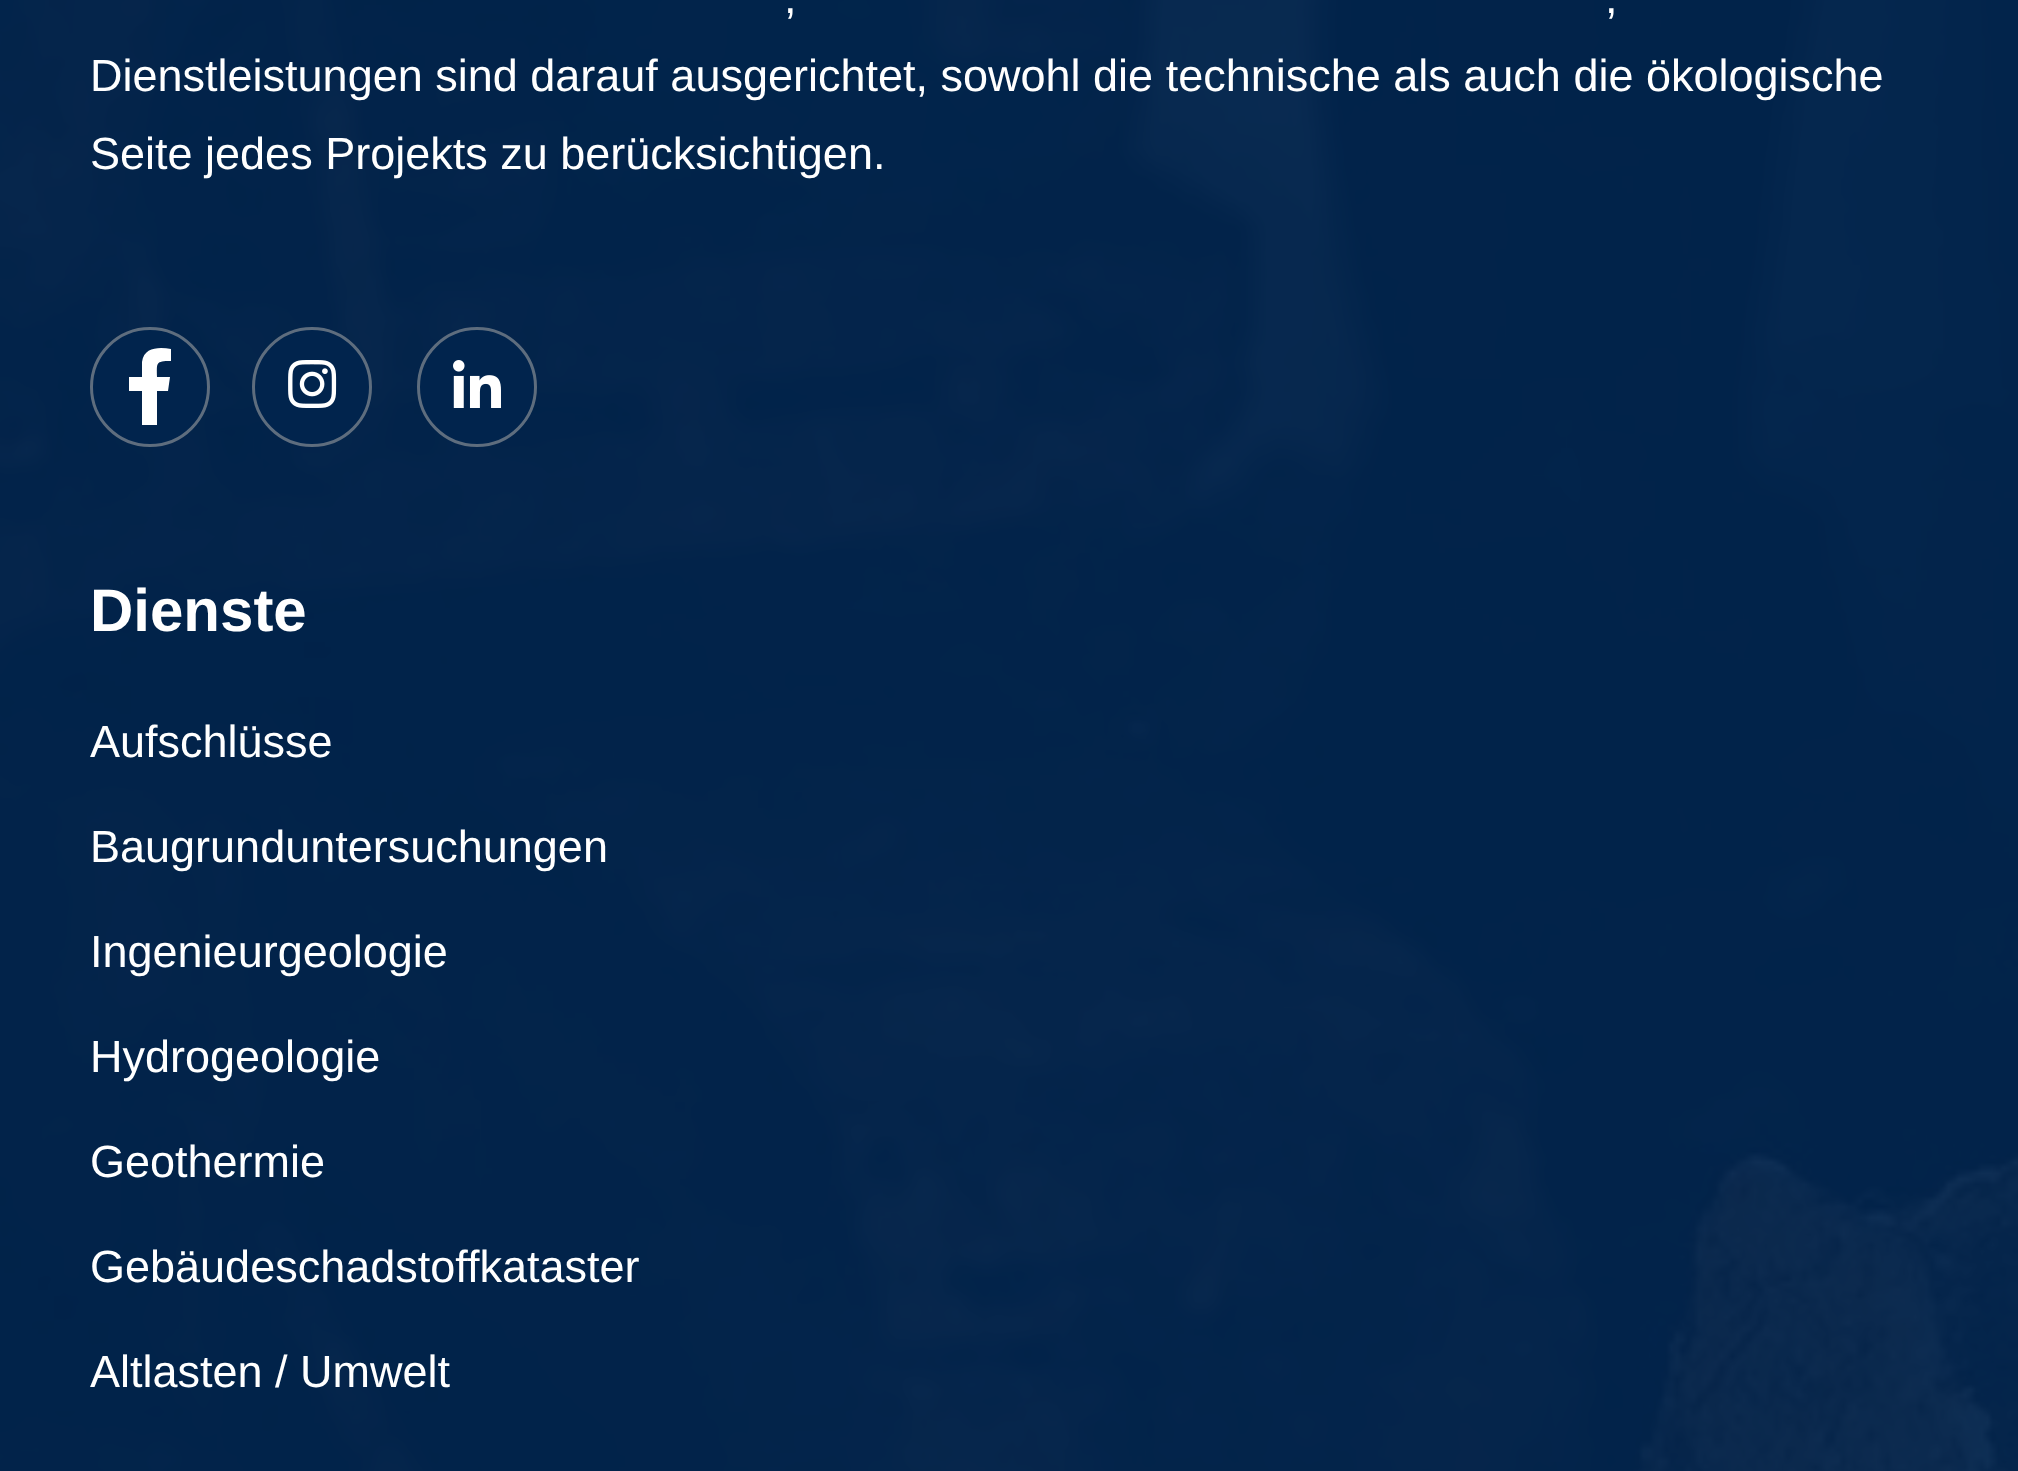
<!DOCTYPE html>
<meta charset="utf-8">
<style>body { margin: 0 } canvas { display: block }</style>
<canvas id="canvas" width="2018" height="1471"></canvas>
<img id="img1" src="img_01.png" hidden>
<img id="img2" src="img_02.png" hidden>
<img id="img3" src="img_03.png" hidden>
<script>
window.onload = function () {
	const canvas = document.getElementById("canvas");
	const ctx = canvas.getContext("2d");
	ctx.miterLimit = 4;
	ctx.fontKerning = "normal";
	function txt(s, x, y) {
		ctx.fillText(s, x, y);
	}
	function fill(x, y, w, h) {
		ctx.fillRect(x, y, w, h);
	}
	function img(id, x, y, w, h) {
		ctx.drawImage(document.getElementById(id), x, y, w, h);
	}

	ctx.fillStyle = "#FFFFFF";
	fill(0, 0, 2018, 1471);
	img("img1", 0, 0, 2018, 1471);
	ctx.fillStyle = "#01244D";
	ctx.beginPath();
	ctx.arc(150, 387, 58.5, 0, Math.PI * 2);
	ctx.fill();
	ctx.strokeStyle = "#5E6D7E";
	ctx.lineWidth = 3;
	ctx.stroke();
	ctx.fillStyle = "#FFFFFF";
	ctx.beginPath();
	ctx.moveTo(168, 391);
	ctx.lineTo(170, 377);
	ctx.lineTo(157, 377);
	ctx.bezierCurveTo(157, 363, 155, 361, 171, 361);
	ctx.lineTo(171, 349);
	ctx.bezierCurveTo(159, 347, 144, 347, 142, 362);
	ctx.lineTo(142, 377);
	ctx.lineTo(129, 377);
	ctx.lineTo(129, 391);
	ctx.lineTo(142, 391);
	ctx.lineTo(142, 425);
	ctx.lineTo(157, 425);
	ctx.lineTo(157, 391);
	ctx.closePath();
	ctx.fill();
	ctx.fillStyle = "#01244D";
	ctx.beginPath();
	ctx.arc(312, 387, 58.5, 0, Math.PI * 2);
	ctx.fill();
	ctx.stroke();
	img("img2", 288, 360, 49, 48);
	ctx.beginPath();
	ctx.arc(477, 387, 58.5, 0, Math.PI * 2);
	ctx.fill();
	ctx.stroke();
	img("img3", 453, 360, 48, 48);
	ctx.font = "45px Liberation Sans";
	ctx.fillStyle = "#FFFFFF";
	txt(",", 784, 13);
	txt(",", 1605, 13);
	txt("Dienstleistungen sind darauf ausgerichtet, sowohl die technische als auch die ökologische", 90, 91);
	txt("Seite jedes Projekts zu berücksichtigen.", 90, 169);
	ctx.font = "bold 60px Liberation Sans";
	txt("Dienste", 90, 631);
	ctx.font = "45px Liberation Sans";
	txt("Aufschlüsse", 90, 757);
	txt("Baugrunduntersuchungen", 90, 862);
	txt("Ingenieurgeologie", 90, 967);
	txt("Hydrogeologie", 90, 1072);
	txt("Geothermie", 90, 1177);
	txt("Gebäudeschadstoffkataster", 90, 1282);
	txt("Altlasten / Umwelt", 90, 1387);
};
</script>
